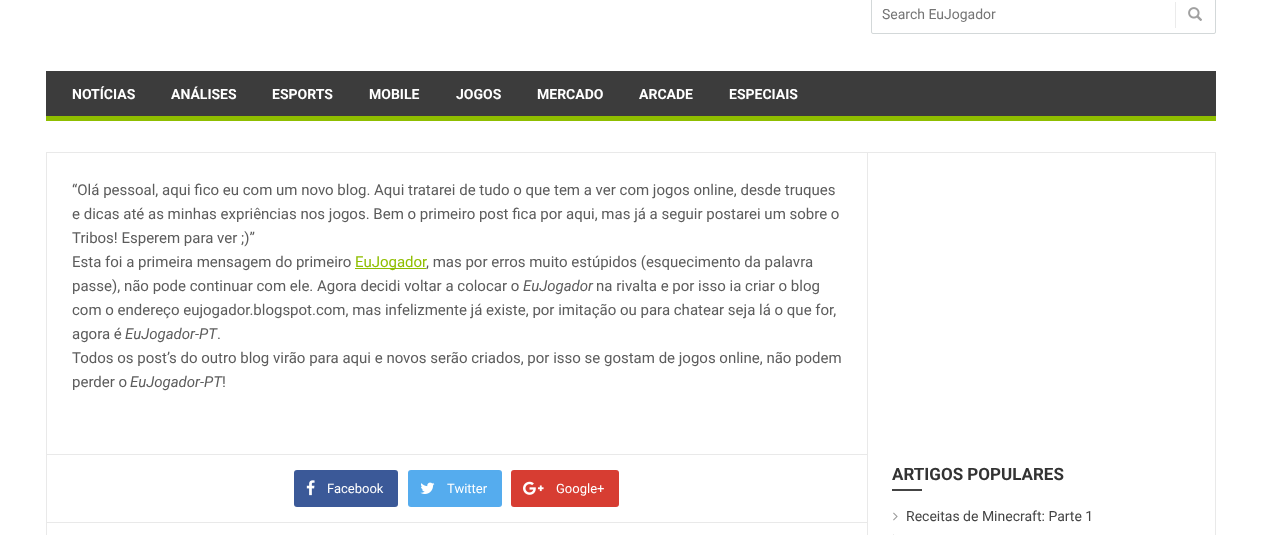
<!DOCTYPE html>
<meta charset="utf-8">
<style>body { margin: 0 } canvas { display: block }</style>
<canvas id="canvas" width="1261" height="535"></canvas>
<img id="img1" src="img_01.png" hidden>
<img id="img2" src="img_02.png" hidden>
<img id="img3" src="img_03.png" hidden>
<img id="img4" src="img_04.png" hidden>
<img id="img5" src="img_05.png" hidden>
<script>
window.onload = function () {
	const canvas = document.getElementById("canvas");
	const ctx = canvas.getContext("2d");
	ctx.miterLimit = 4;
	ctx.fontKerning = "normal";
	function txt(s, x, y) {
		ctx.fillText(s, x, y);
	}
	function fill(x, y, w, h) {
		ctx.fillRect(x, y, w, h);
	}
	function round(x, y, w, h, r) {
		ctx.beginPath();
		ctx.roundRect(x, y, w, h, r);
		ctx.fill();
	}
	function img(id, x, y, w, h) {
		ctx.drawImage(document.getElementById(id), x, y, w, h);
	}

	ctx.fillStyle = "#FFFFFF";
	fill(0, 0, 1261, 535);
	ctx.beginPath();
	ctx.roundRect(871.5, -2.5, 344, 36, 1.5);
	ctx.strokeStyle = "#D3D8D9";
	ctx.stroke();
	ctx.fillStyle = "#EBEBEB";
	fill(1175, 2, 1, 26);
	img("img1", 1188, 7, 14, 14);
	ctx.fillStyle = "#3C3C3C";
	fill(46, 71, 1170, 45);
	ctx.fillStyle = "#8FBE00";
	fill(46, 116, 1170, 5);
	ctx.strokeStyle = "#E9E9E9";
	ctx.strokeRect(46.5, 152.5, 1169, 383);
	fill(355, 268, 71, 1);
	ctx.fillStyle = "#E9E9E9";
	fill(47, 454, 820, 1);
	fill(47, 522, 820, 1);
	ctx.fillStyle = "#3B5998";
	round(294, 470, 104, 37, 3);
	img("img2", 306, 480, 9, 16);
	ctx.fillStyle = "#55ACEE";
	round(408, 470, 94, 37, 3);
	img("img3", 420, 482, 15, 12);
	ctx.fillStyle = "#D73D32";
	round(511, 470, 108, 37, 3);
	img("img4", 523, 481, 21, 14);
	ctx.fillStyle = "#E9E9E9";
	fill(867, 153, 1, 382);
	ctx.fillStyle = "#444444";
	fill(892, 489, 30, 2);
	img("img5", 893, 512, 5, 9);
	ctx.fillStyle = "#EBEBEB";
	fill(893, 534, 1, 1);
	ctx.font = "14px Roboto";
	ctx.fillStyle = "#757575";
	txt("Search EuJogador", 882, 19);
	ctx.font = "bold 14px Roboto";
	ctx.fillStyle = "#FFFFFF";
	txt("NOTÍCIAS", 72, 99);
	txt("ANÁLISES", 171, 99);
	txt("ESPORTS", 272, 99);
	txt("MOBILE", 369, 99);
	txt("JOGOS", 456, 99);
	txt("MERCADO", 537, 99);
	txt("ARCADE", 639, 99);
	txt("ESPECIAIS", 729, 99);
	ctx.font = "15px Roboto";
	ctx.fillStyle = "#5C5C5C";
	txt("“Olá pessoal, aqui fico eu com um novo blog. Aqui tratarei de tudo o que tem a ver com jogos online, desde truques", 72, 195);
	txt("e dicas até as minhas expriências nos jogos. Bem o primeiro post fica por aqui, mas já a seguir postarei um sobre o", 72, 219);
	txt("Tribos! Esperem para ver ;)”", 72, 243);
	txt("Esta foi a primeira mensagem do primeiro", 72, 267);
	ctx.fillStyle = "#8FBE00";
	txt("EuJogador", 355, 267);
	ctx.fillStyle = "#5C5C5C";
	txt(", mas por erros muito estúpidos (esquecimento da palavra", 426, 267);
	txt("passe), não pode continuar com ele. Agora decidi voltar a colocar o", 72, 291);
	ctx.font = "italic 15px Roboto";
	txt("EuJogador", 523, 291);
	ctx.font = "15px Roboto";
	txt("na rivalta e por isso ia criar o blog", 596, 291);
	txt("com o endereço eujogador.blogspot.com, mas infelizmente já existe, por imitação ou para chatear seja lá o que for,", 72, 315);
	txt("agora é", 72, 339);
	ctx.font = "italic 15px Roboto";
	txt("EuJogador-PT", 125, 339);
	ctx.font = "15px Roboto";
	txt(".", 217, 339);
	txt("Todos os post’s do outro blog virão para aqui e novos serão criados, por isso se gostam de jogos online, não podem", 72, 363);
	txt("perder o", 72, 387);
	ctx.font = "italic 15px Roboto";
	txt("EuJogador-PT", 130, 387);
	ctx.font = "15px Roboto";
	txt("!", 222, 387);
	ctx.font = "13px Roboto";
	ctx.fillStyle = "#FFFFFF";
	txt("Facebook", 327, 493);
	txt("Twitter", 447, 493);
	txt("Google+", 556, 493);
	ctx.font = "bold 17px Roboto";
	ctx.fillStyle = "#333333";
	txt("ARTIGOS POPULARES", 892, 480);
	ctx.font = "14px Roboto";
	ctx.fillStyle = "#444444";
	txt("Receitas de Minecraft: Parte 1", 906, 521);
};
</script>
